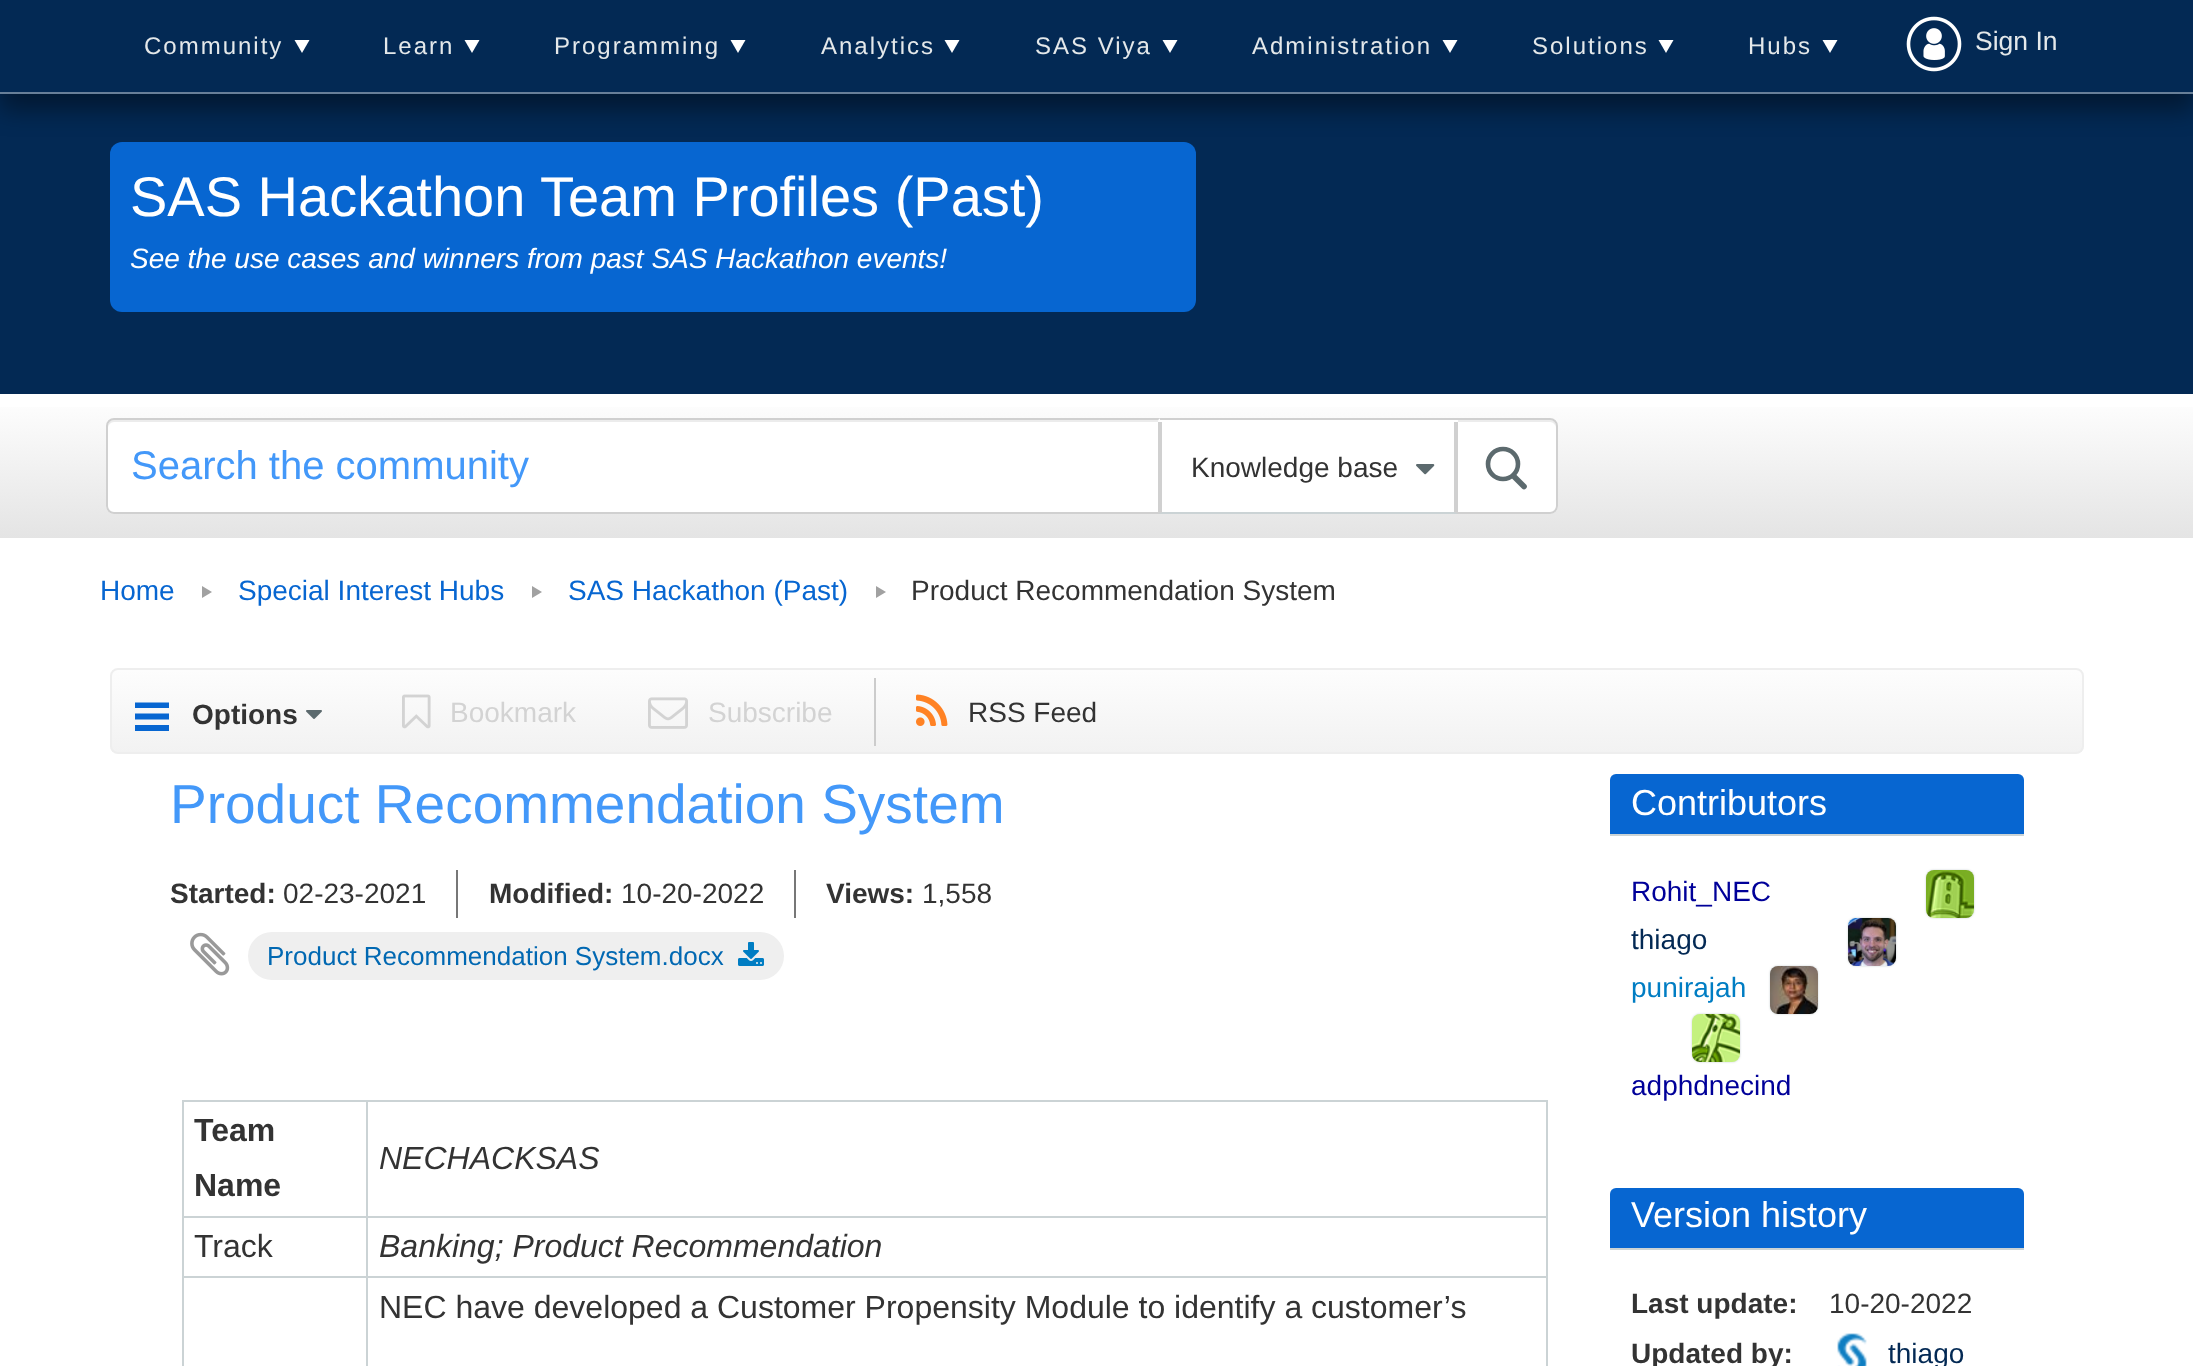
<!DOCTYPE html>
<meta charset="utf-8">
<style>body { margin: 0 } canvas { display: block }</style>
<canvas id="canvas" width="2193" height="1366"></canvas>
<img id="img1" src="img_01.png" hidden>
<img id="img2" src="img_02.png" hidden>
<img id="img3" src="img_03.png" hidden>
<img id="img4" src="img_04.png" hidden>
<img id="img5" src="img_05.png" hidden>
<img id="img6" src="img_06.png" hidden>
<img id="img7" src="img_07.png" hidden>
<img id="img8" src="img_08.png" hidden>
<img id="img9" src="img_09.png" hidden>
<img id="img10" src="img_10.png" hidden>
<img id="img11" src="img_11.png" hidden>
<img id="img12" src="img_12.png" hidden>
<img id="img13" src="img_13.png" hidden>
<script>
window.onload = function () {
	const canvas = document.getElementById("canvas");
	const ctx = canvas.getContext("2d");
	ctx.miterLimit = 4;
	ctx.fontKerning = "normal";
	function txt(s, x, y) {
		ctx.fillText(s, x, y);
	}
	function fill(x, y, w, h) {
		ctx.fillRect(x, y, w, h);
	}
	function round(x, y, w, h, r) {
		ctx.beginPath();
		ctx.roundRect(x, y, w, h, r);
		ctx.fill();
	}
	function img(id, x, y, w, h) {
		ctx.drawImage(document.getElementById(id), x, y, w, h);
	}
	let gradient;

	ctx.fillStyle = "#FFFFFF";
	fill(0, 0, 2193, 1366);
	ctx.fillStyle = "#032954";
	fill(0, 94, 2193, 300);
	ctx.fillStyle = "rgba(0, 0, 0, 0.4)";
	ctx.filter = "blur(12px)";
	ctx.beginPath();
	ctx.rect(0, 16, 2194, 94);
	ctx.fill();
	ctx.filter = "none";
	ctx.fillStyle = "#032954";
	fill(0, 0, 2193, 92);
	ctx.fillStyle = "#687F98";
	fill(0, 92, 2193, 2);
	ctx.fillStyle = "#FFFFFF";
	ctx.beginPath();
	ctx.moveTo(302, 53);
	ctx.lineTo(294.5, 40);
	ctx.lineTo(309.5, 40);
	ctx.closePath();
	ctx.fill();
	ctx.beginPath();
	ctx.moveTo(472, 53);
	ctx.lineTo(464.5, 40);
	ctx.lineTo(479.5, 40);
	ctx.closePath();
	ctx.fill();
	ctx.beginPath();
	ctx.moveTo(738, 53);
	ctx.lineTo(730.5, 40);
	ctx.lineTo(745.5, 40);
	ctx.closePath();
	ctx.fill();
	ctx.beginPath();
	ctx.moveTo(952, 53);
	ctx.lineTo(944.5, 40);
	ctx.lineTo(959.5, 40);
	ctx.closePath();
	ctx.fill();
	ctx.beginPath();
	ctx.moveTo(1170, 53);
	ctx.lineTo(1162.5, 40);
	ctx.lineTo(1177.5, 40);
	ctx.closePath();
	ctx.fill();
	ctx.beginPath();
	ctx.moveTo(1450, 53);
	ctx.lineTo(1442.5, 40);
	ctx.lineTo(1457.5, 40);
	ctx.closePath();
	ctx.fill();
	ctx.beginPath();
	ctx.moveTo(1666, 53);
	ctx.lineTo(1658.5, 40);
	ctx.lineTo(1673.5, 40);
	ctx.closePath();
	ctx.fill();
	ctx.beginPath();
	ctx.moveTo(1830, 53);
	ctx.lineTo(1822.5, 40);
	ctx.lineTo(1837.5, 40);
	ctx.closePath();
	ctx.fill();
	img("img1", 1906, 16, 56, 56);
	ctx.fillStyle = "#0766D1";
	round(110, 142, 1086, 170, 12);
	gradient = ctx.createLinearGradient(1097, 394, 1097, 538);
	gradient.addColorStop(0, "#FFFFFF");
	gradient.addColorStop(1, "#E4E4E4");
	ctx.fillStyle = gradient;
	fill(0, 407, 2193, 131);
	ctx.fillStyle = "#FFFFFF";
	round(106, 418, 1452, 96, 8);
	ctx.fillStyle = "#ECECEC";
	ctx.beginPath();
	ctx.moveTo(114, 422);
	ctx.lineTo(1550, 422);
	ctx.bezierCurveTo(1553, 422, 1556, 425, 1556, 428);
	ctx.bezierCurveTo(1556, 424, 1555, 420, 1550, 420);
	ctx.lineTo(114, 420);
	ctx.bezierCurveTo(109, 420, 108, 424, 108, 428);
	ctx.bezierCurveTo(108, 425, 111, 422, 114, 422);
	ctx.closePath();
	ctx.fill();
	ctx.beginPath();
	ctx.roundRect(107, 419, 1450, 94, 7);
	ctx.strokeStyle = "#D0D0D0";
	ctx.lineWidth = 2;
	ctx.stroke();
	ctx.beginPath();
	ctx.arc(1503, 464, 15, 0, Math.PI * 2);
	ctx.strokeStyle = "#5C6A6E";
	ctx.lineWidth = 4.6;
	ctx.stroke();
	ctx.beginPath();
	ctx.moveTo(1514.5, 477);
	ctx.lineTo(1524, 486.5);
	ctx.lineWidth = 5.7;
	ctx.lineCap = "round";
	ctx.stroke();
	ctx.fillStyle = "#FFFFFF";
	ctx.beginPath();
	ctx.roundRect(1158, 418, 300, 94, [4, 0, 0, 4]);
	ctx.fill();
	ctx.fillStyle = "#D0D0D0";
	fill(1160, 418, 298, 2);
	ctx.beginPath();
	ctx.moveTo(1458, 422);
	ctx.lineTo(1458, 514);
	ctx.lineTo(1454, 512);
	ctx.lineTo(1454, 422);
	ctx.closePath();
	ctx.fill();
	ctx.fillStyle = "#CBD3D5";
	ctx.beginPath();
	ctx.moveTo(1458, 514);
	ctx.lineTo(1158, 514);
	ctx.lineTo(1162, 512);
	ctx.lineTo(1454, 512);
	ctx.closePath();
	ctx.fill();
	ctx.fillStyle = "#D0D0D0";
	ctx.beginPath();
	ctx.moveTo(1158, 514);
	ctx.lineTo(1158, 422);
	ctx.lineTo(1162, 422);
	ctx.lineTo(1162, 512);
	ctx.closePath();
	ctx.fill();
	img("img2", 1416, 464, 19, 11);
	ctx.fillStyle = "#A1A1A1";
	ctx.beginPath();
	ctx.moveTo(212, 592);
	ctx.lineTo(202, 598);
	ctx.lineTo(202, 586);
	ctx.closePath();
	ctx.fill();
	ctx.beginPath();
	ctx.moveTo(542, 592);
	ctx.lineTo(532, 598);
	ctx.lineTo(532, 586);
	ctx.closePath();
	ctx.fill();
	ctx.beginPath();
	ctx.moveTo(886, 592);
	ctx.lineTo(876, 598);
	ctx.lineTo(876, 586);
	ctx.closePath();
	ctx.fill();
	ctx.save();
	ctx.beginPath();
	ctx.roundRect(110, 668, 1974, 86, 8);
	ctx.clip();
	gradient = ctx.createLinearGradient(1097, 670, 1097, 752);
	gradient.addColorStop(0, "#FDFDFD");
	gradient.addColorStop(1, "#F2F2F2");
	ctx.fillStyle = gradient;
	fill(110, 670, 1974, 82);
	ctx.restore();
	ctx.beginPath();
	ctx.roundRect(111, 669, 1972, 84, 7);
	ctx.strokeStyle = "#EEEEEE";
	ctx.lineWidth = 2;
	ctx.stroke();
	ctx.fillStyle = "#0766D1";
	ctx.beginPath();
	ctx.moveTo(169, 708);
	ctx.lineTo(135, 708);
	ctx.lineTo(135, 702.5);
	ctx.lineTo(169, 702.5);
	ctx.closePath();
	ctx.moveTo(169, 719.5);
	ctx.lineTo(135, 719.5);
	ctx.lineTo(135, 713.5);
	ctx.lineTo(169, 713.5);
	ctx.closePath();
	ctx.moveTo(169, 731);
	ctx.lineTo(135, 731);
	ctx.lineTo(135, 725);
	ctx.lineTo(169, 725);
	ctx.closePath();
	ctx.fill();
	img("img3", 306, 710, 16, 9);
	img("img4", 402, 694, 29, 35);
	img("img5", 648, 697, 40, 32);
	ctx.fillStyle = "#CCCCCC";
	fill(874, 678, 2, 68);
	img("img6", 916, 694, 32, 32);
	ctx.fillStyle = "#777777";
	fill(456, 870, 2, 48);
	fill(794, 870, 2, 48);
	img("img7", 190, 932, 40, 44);
	ctx.fillStyle = "#EFEFEF";
	round(248, 932, 536, 48, 24);
	img("img8", 738, 942, 26, 24);
	ctx.fillStyle = "#CBD3D5";
	fill(366, 1100, 1182, 2);
	fill(366, 1216, 1182, 2);
	fill(366, 1276, 1182, 2);
	fill(366, 1276, 2, 90);
	fill(182, 1276, 186, 2);
	fill(366, 1216, 2, 62);
	fill(182, 1216, 186, 2);
	fill(366, 1100, 2, 118);
	fill(182, 1100, 186, 2);
	fill(182, 1276, 2, 90);
	fill(182, 1216, 2, 62);
	fill(182, 1100, 2, 118);
	fill(1546, 1276, 2, 90);
	fill(1546, 1216, 2, 62);
	fill(1546, 1100, 2, 118);
	ctx.fillStyle = "#0766D1";
	ctx.beginPath();
	ctx.roundRect(1610, 774, 414, 62, [6, 6, 0, 0]);
	ctx.fill();
	ctx.fillStyle = "#CBD3D5";
	fill(1610, 834, 414, 2);
	ctx.filter = "blur(1px)";
	ctx.beginPath();
	ctx.roundRect(1926, 870, 48, 48, 8);
	ctx.fill();
	ctx.filter = "none";
	img("img9", 1926, 870, 48, 48);
	ctx.filter = "blur(1px)";
	ctx.beginPath();
	ctx.roundRect(1848, 918, 48, 48, 8);
	ctx.fill();
	ctx.filter = "none";
	img("img10", 1848, 918, 48, 48);
	ctx.filter = "blur(1px)";
	ctx.beginPath();
	ctx.roundRect(1770, 966, 48, 48, 8);
	ctx.fill();
	ctx.filter = "none";
	img("img11", 1770, 966, 48, 48);
	ctx.filter = "blur(1px)";
	ctx.beginPath();
	ctx.roundRect(1692, 1014, 48, 48, 8);
	ctx.fill();
	ctx.filter = "none";
	img("img12", 1692, 1014, 48, 48);
	ctx.fillStyle = "#0766D1";
	ctx.beginPath();
	ctx.roundRect(1610, 1188, 414, 62, [6, 6, 0, 0]);
	ctx.fill();
	ctx.fillStyle = "#CBD3D5";
	fill(1610, 1248, 414, 2);
	img("img13", 1837, 1333, 30, 33);
	ctx.letterSpacing = "2px";
	ctx.font = "24px Liberation Sans";
	ctx.fillStyle = "#E4E8EA";
	txt("Community", 144, 54);
	txt("Learn", 383, 54);
	txt("Programming", 554, 54);
	txt("Analytics", 821, 54);
	txt("SAS Viya", 1035, 54);
	txt("Administration", 1252, 54);
	txt("Solutions", 1532, 54);
	txt("Hubs", 1748, 54);
	ctx.letterSpacing = "0px";
	ctx.font = "26.5px Liberation Sans";
	txt("Sign In", 1975, 50);
	ctx.font = "56px Liberation Sans";
	ctx.fillStyle = "#FFFFFF";
	txt("SAS Hackathon Team Profiles (Past)", 130, 216);
	ctx.font = "italic 28px Liberation Sans";
	txt("See the use cases and winners from past SAS Hackathon events!", 130, 268);
	ctx.font = "40px Liberation Sans";
	ctx.fillStyle = "#4398F9";
	txt("Search the community", 131, 479);
	ctx.font = "28px Liberation Sans";
	ctx.fillStyle = "#333333";
	txt("Knowledge base", 1191, 477);
	ctx.fillStyle = "#0766D1";
	txt("Home", 100, 600);
	txt("Special Interest Hubs", 238, 600);
	txt("SAS Hackathon (Past)", 568, 600);
	ctx.fillStyle = "#333333";
	txt("Product Recommendation System", 911, 600);
	ctx.font = "bold 28px Liberation Sans";
	txt("Options", 192, 724);
	ctx.font = "28px Liberation Sans";
	ctx.fillStyle = "#D3D3D3";
	txt("Bookmark", 450, 722);
	txt("Subscribe", 708, 722);
	ctx.fillStyle = "#333333";
	txt("RSS Feed", 968, 722);
	ctx.font = "55px Liberation Sans";
	ctx.fillStyle = "#4398F9";
	txt("Product Recommendation System", 170, 823);
	ctx.font = "bold 28px Liberation Sans";
	ctx.fillStyle = "#333333";
	txt("Started:", 170, 903);
	ctx.font = "28px Liberation Sans";
	txt("02-23-2021", 283, 903);
	ctx.font = "bold 28px Liberation Sans";
	txt("Modified:", 489, 903);
	ctx.font = "28px Liberation Sans";
	txt("10-20-2022", 621, 903);
	ctx.font = "bold 28px Liberation Sans";
	txt("Views:", 826, 903);
	ctx.font = "28px Liberation Sans";
	txt("1,558", 922, 903);
	ctx.font = "26px Liberation Sans";
	ctx.fillStyle = "#0168B2";
	txt("Product Recommendation System.docx", 267, 965);
	ctx.font = "bold 32px Liberation Sans";
	ctx.fillStyle = "#333333";
	txt("Team", 194, 1141);
	txt("Name", 194, 1196);
	ctx.font = "italic 32px Liberation Sans";
	txt("NECHACKSAS", 379, 1169);
	ctx.font = "32px Liberation Sans";
	txt("Track", 194, 1257);
	ctx.font = "italic 32px Liberation Sans";
	txt("Banking; Product Recommendation", 379, 1257);
	ctx.font = "32px Liberation Sans";
	txt("NEC have developed a Customer Propensity Module to identify a customer’s", 379, 1318);
	ctx.font = "36px Liberation Sans";
	ctx.fillStyle = "#FFFFFF";
	txt("Contributors", 1631, 815);
	ctx.font = "28px Liberation Sans";
	ctx.fillStyle = "#000099";
	txt("Rohit_NEC", 1631, 901);
	ctx.fillStyle = "#032954";
	txt("thiago", 1631, 949);
	ctx.fillStyle = "#007DC3";
	txt("punirajah", 1631, 997);
	ctx.fillStyle = "#000099";
	txt("adphdnecind", 1631, 1095);
	ctx.font = "36px Liberation Sans";
	ctx.fillStyle = "#FFFFFF";
	txt("Version history", 1631, 1227);
	ctx.font = "bold 28px Liberation Sans";
	ctx.fillStyle = "#333333";
	txt("Last update:", 1631, 1313);
	ctx.font = "28px Liberation Sans";
	txt("10-20-2022", 1829, 1313);
	ctx.font = "bold 28px Liberation Sans";
	txt("Updated by:", 1631, 1363);
	ctx.font = "28px Liberation Sans";
	ctx.fillStyle = "#032954";
	txt("thiago", 1888, 1363);
};
</script>
